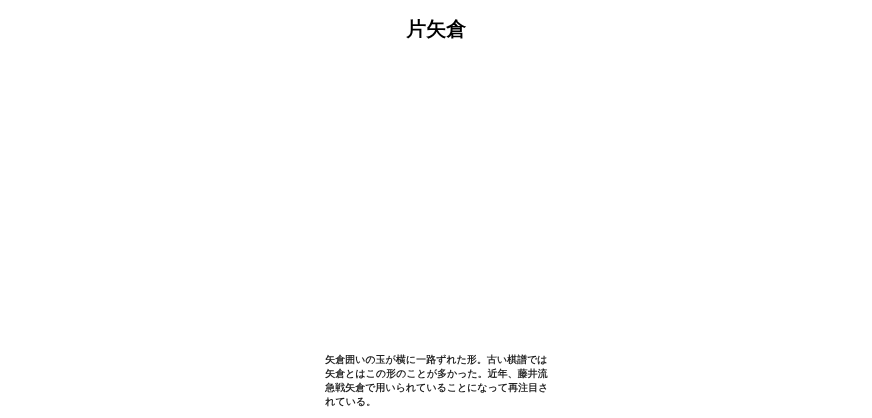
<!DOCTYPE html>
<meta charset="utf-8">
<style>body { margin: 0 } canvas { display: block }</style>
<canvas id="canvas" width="872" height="418"></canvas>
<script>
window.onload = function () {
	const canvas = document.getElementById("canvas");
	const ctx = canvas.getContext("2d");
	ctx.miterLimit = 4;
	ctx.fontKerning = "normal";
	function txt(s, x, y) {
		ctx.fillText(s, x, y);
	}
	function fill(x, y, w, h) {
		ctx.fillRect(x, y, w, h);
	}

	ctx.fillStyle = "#FFFFFF";
	fill(0, 0, 872, 418);
	ctx.font = "bold 20px WenQuanYi Zen Hei";
	ctx.fillStyle = "#000000";
	txt("片矢倉", 406, 36);
	ctx.font = "bold 10px WenQuanYi Zen Hei";
	ctx.fillStyle = "#212121";
	txt("矢倉囲いの玉が横に一路ずれた形。古い棋譜では", 325, 363);
	txt("矢倉とはこの形のことが多かった。近年、藤井流", 325, 377);
	txt("急戦矢倉で用いられていることになって再注目さ", 325, 391);
	txt("れている。", 325, 405);
};
</script>
